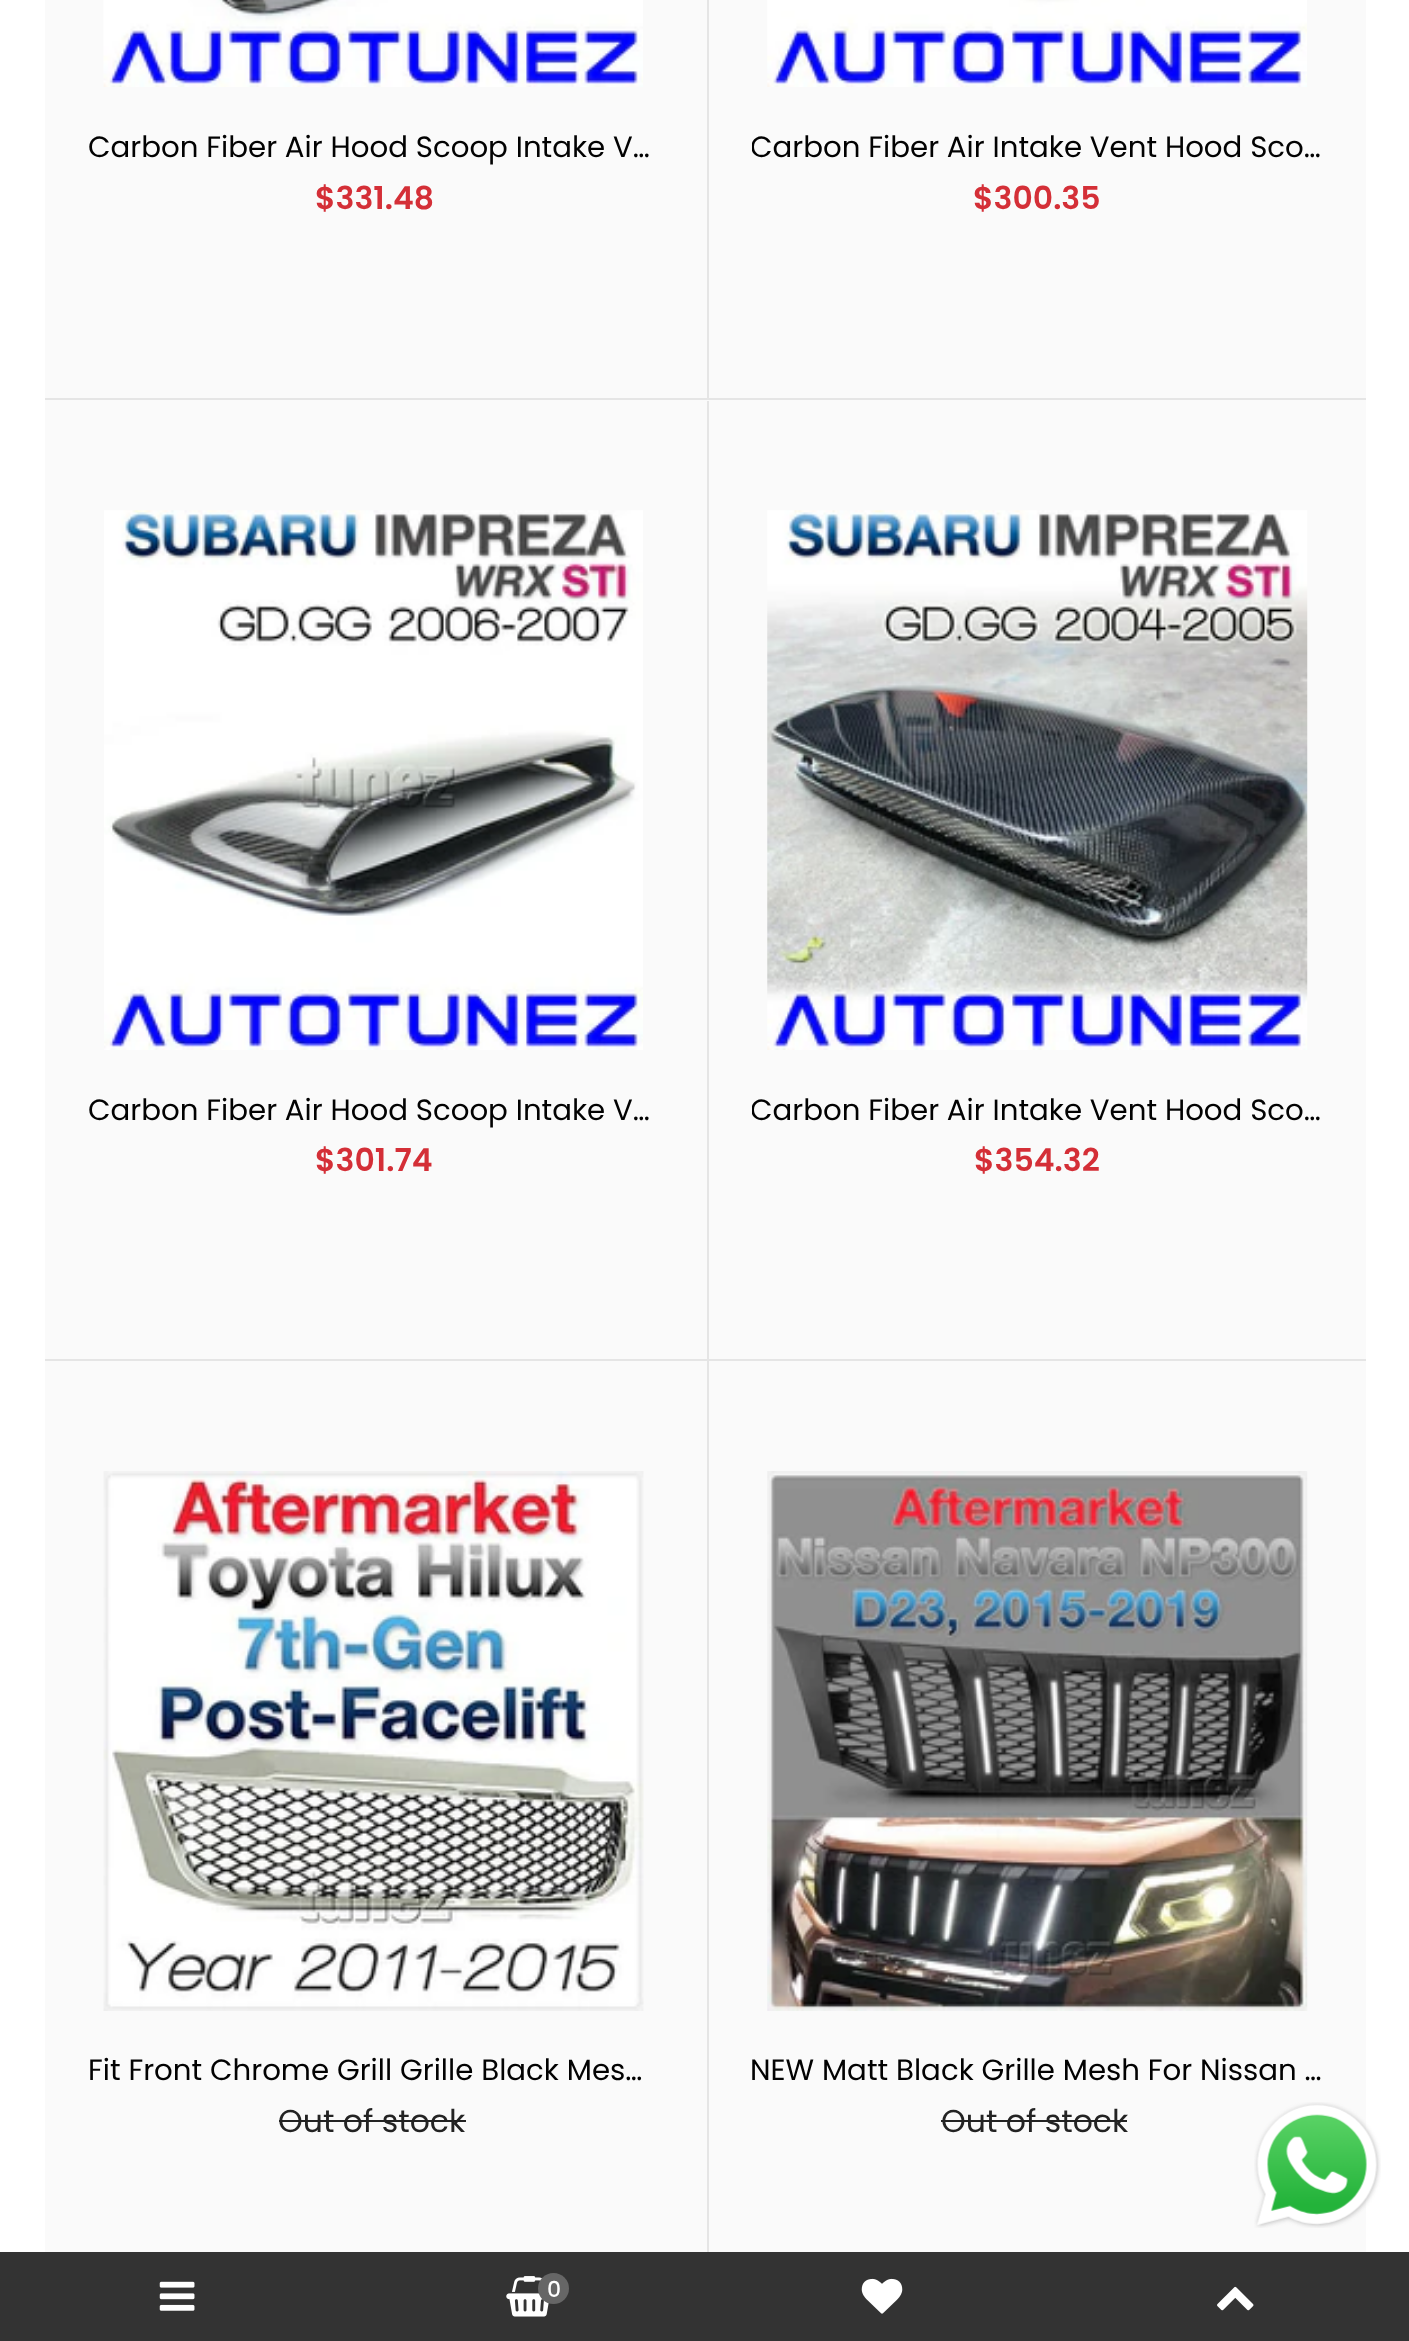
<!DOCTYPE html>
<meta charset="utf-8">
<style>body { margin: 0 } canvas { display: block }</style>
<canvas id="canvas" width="1409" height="2341"></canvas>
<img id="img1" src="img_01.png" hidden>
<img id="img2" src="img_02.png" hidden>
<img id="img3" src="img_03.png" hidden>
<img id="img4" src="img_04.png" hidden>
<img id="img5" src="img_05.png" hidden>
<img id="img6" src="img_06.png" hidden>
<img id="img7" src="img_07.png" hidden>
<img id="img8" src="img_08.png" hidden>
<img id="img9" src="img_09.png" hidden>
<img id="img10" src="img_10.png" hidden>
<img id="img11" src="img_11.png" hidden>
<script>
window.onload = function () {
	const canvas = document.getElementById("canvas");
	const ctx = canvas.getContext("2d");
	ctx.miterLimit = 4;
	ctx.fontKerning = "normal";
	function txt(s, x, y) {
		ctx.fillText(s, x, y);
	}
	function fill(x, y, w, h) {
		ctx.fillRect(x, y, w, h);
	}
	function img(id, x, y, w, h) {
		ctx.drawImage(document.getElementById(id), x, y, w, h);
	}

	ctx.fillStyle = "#FFFFFF";
	fill(0, 0, 1409, 2341);
	ctx.fillStyle = "#FAFAFA";
	fill(45, 0, 1321, 2252);
	img("img1", 103, 0, 540, 87);
	ctx.fillStyle = "#E5E5E5";
	fill(707, 0, 2, 398);
	img("img2", 767, 0, 540, 87);
	fill(45, 398, 1321, 2);
	img("img3", 104, 510, 539, 540);
	fill(707, 401, 2, 1851);
	img("img4", 767, 510, 541, 540);
	fill(45, 1359, 1321, 2);
	img("img5", 103, 1471, 541, 540);
	ctx.fillStyle = "#232323";
	fill(279, 2120, 187, 2);
	img("img6", 767, 1471, 541, 540);
	fill(941, 2120, 186, 2);
	ctx.fillStyle = "#333333";
	fill(0, 2252, 1058, 89);
	img("img7", 159, 2281, 36, 30);
	fill(1058, 2252, 351, 89);
	img("img8", 1217, 2286, 37, 25);
	img("img9", 506, 2276, 43, 41);
	ctx.fillStyle = "#666666";
	ctx.beginPath();
	ctx.arc(553.5, 2288.5, 15.5, 0, Math.PI * 2);
	ctx.fill();
	img("img10", 861, 2278, 42, 36);
	img("img11", 1254, 2102, 127, 126);
	ctx.font = "29.25px Poppins";
	ctx.fillStyle = "#020202";
	txt("Carbon Fiber Air Hood Scoop Intake V…", 88, 157);
	ctx.font = "600 31.5px Poppins";
	ctx.fillStyle = "#D42F37";
	txt("$331.48", 315, 209);
	ctx.save();
	ctx.beginPath();
	ctx.rect(752, 104, 571, 69);
	ctx.clip();
	ctx.font = "29.25px Poppins";
	ctx.fillStyle = "#020202";
	txt("Carbon Fiber Air Intake Vent Hood Sco…", 750, 157);
	ctx.restore();
	txt("$300.35", 973, 209);
	ctx.font = "29.25px Poppins";
	ctx.fillStyle = "#020202";
	txt("Carbon Fiber Air Hood Scoop Intake V…", 88, 1120);
	ctx.font = "600 31.5px Poppins";
	ctx.fillStyle = "#D42F37";
	txt("$301.74", 315, 1171);
	ctx.save();
	ctx.beginPath();
	ctx.rect(752, 1067, 571, 69);
	ctx.clip();
	ctx.font = "29.25px Poppins";
	ctx.fillStyle = "#020202";
	txt("Carbon Fiber Air Intake Vent Hood Sco…", 750, 1120);
	ctx.restore();
	txt("$354.32", 974, 1171);
	ctx.font = "29.25px Poppins";
	ctx.fillStyle = "#020202";
	txt("Fit Front Chrome Grill Grille Black Mes…", 88, 2080);
	ctx.font = "31.5px Poppins";
	ctx.fillStyle = "#232323";
	txt("Out of stock", 278, 2132);
	ctx.font = "29.25px Poppins";
	ctx.fillStyle = "#020202";
	txt("NEW Matt Black Grille Mesh For Nissan …", 750, 2080);
	ctx.font = "31.5px Poppins";
	ctx.fillStyle = "#232323";
	txt("Out of stock", 941, 2132);
	ctx.font = "500 22px Poppins";
	ctx.fillStyle = "#FFFFFF";
	txt("0", 547, 2297);
};
</script>
